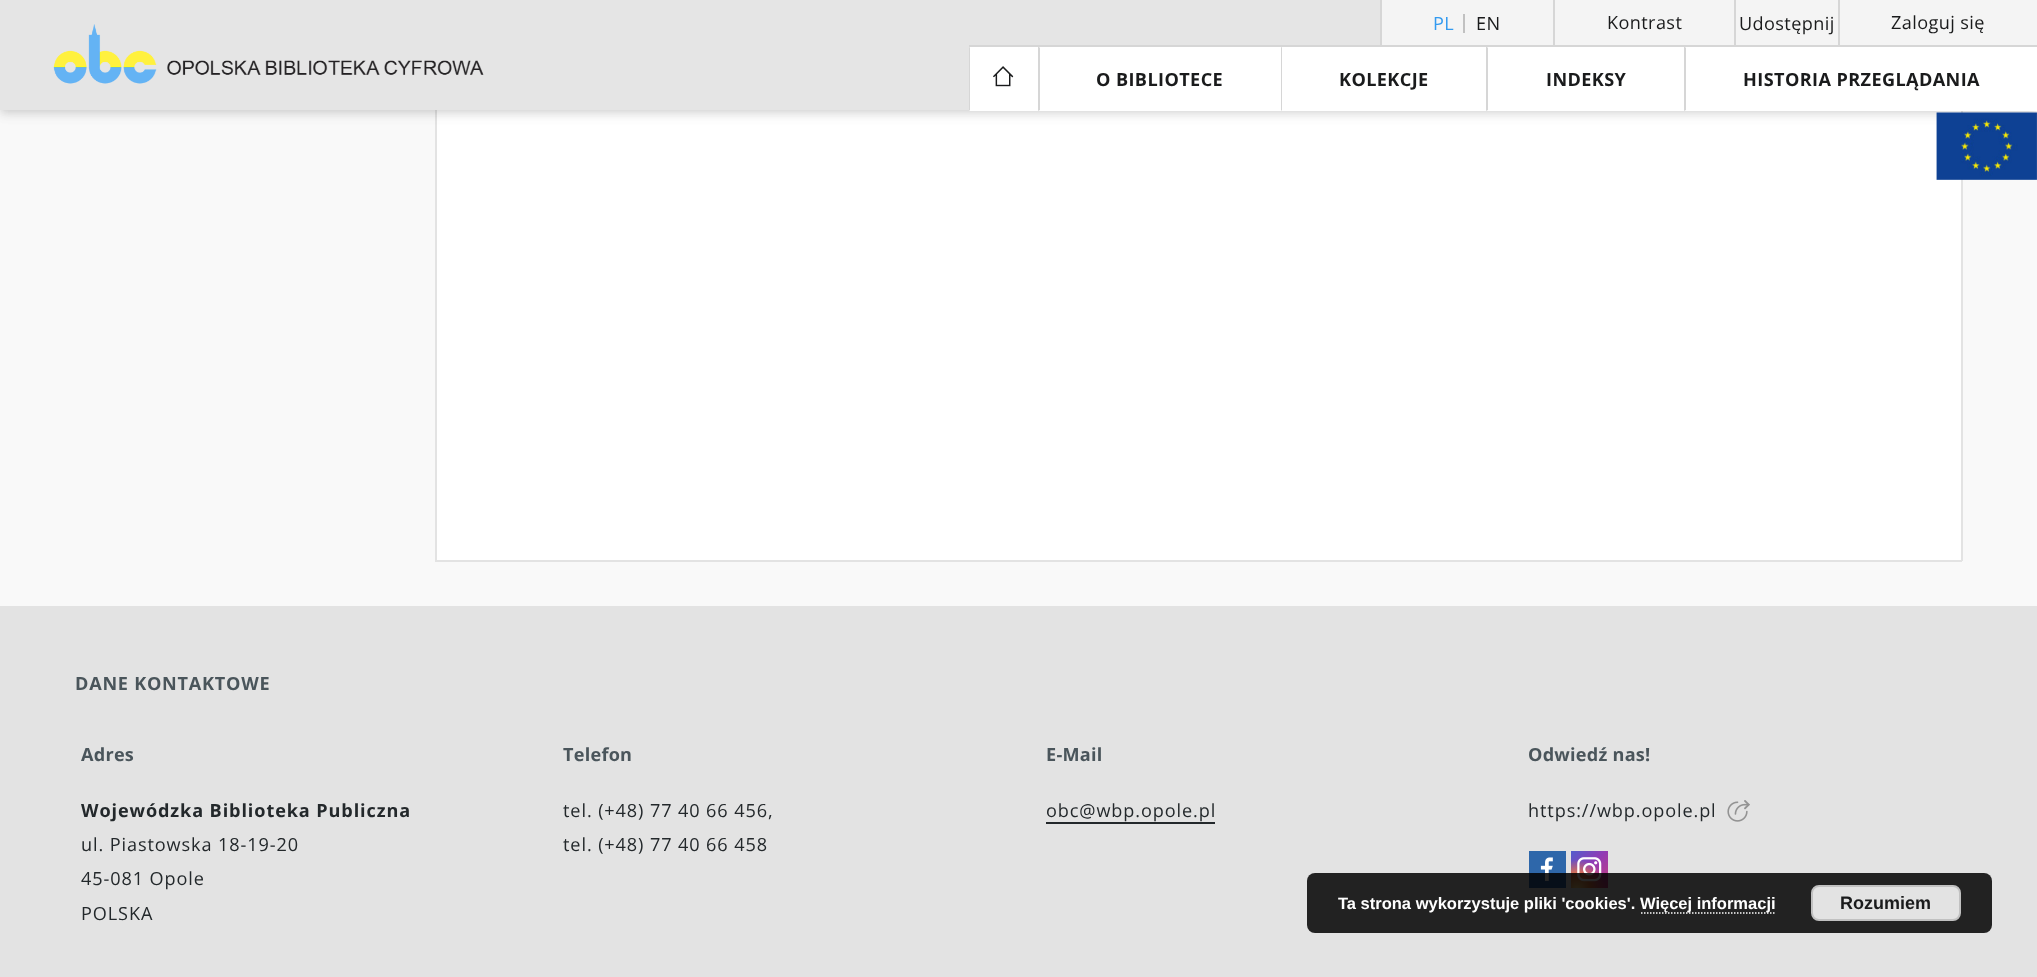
<!DOCTYPE html>
<meta charset="utf-8">
<style>body { margin: 0 } canvas { display: block }</style>
<canvas id="canvas" width="2037" height="977"></canvas>
<img id="img1" src="img_01.png" hidden>
<img id="img2" src="img_02.png" hidden>
<img id="img3" src="img_03.png" hidden>
<img id="img4" src="img_04.png" hidden>
<img id="img5" src="img_05.png" hidden>
<img id="img6" src="img_06.png" hidden>
<script>
window.onload = function () {
	const canvas = document.getElementById("canvas");
	const ctx = canvas.getContext("2d");
	ctx.miterLimit = 4;
	ctx.fontKerning = "normal";
	function txt(s, x, y) {
		ctx.fillText(s, x, y);
	}
	function fill(x, y, w, h) {
		ctx.fillRect(x, y, w, h);
	}
	function round(x, y, w, h, r) {
		ctx.beginPath();
		ctx.roundRect(x, y, w, h, r);
		ctx.fill();
	}
	function img(id, x, y, w, h) {
		ctx.drawImage(document.getElementById(id), x, y, w, h);
	}

	ctx.fillStyle = "#F9F9F9";
	fill(0, 0, 2037, 977);
	ctx.fillStyle = "#FFFFFF";
	fill(437, 110, 1524, 450);
	ctx.fillStyle = "#E3E3E3";
	fill(1961, 111, 2, 450);
	fill(435, 560, 1527, 2);
	fill(435, 110, 2, 451);
	ctx.fillStyle = "rgba(0, 0, 0, 0.08)";
	ctx.filter = "blur(7.5px)";
	ctx.beginPath();
	ctx.rect(0, 2, 2037, 109);
	ctx.fill();
	ctx.filter = "none";
	ctx.fillStyle = "rgba(0, 0, 0, 0.06)";
	ctx.filter = "blur(4px)";
	ctx.beginPath();
	ctx.rect(0, 6, 2037, 110);
	ctx.fill();
	ctx.filter = "none";
	ctx.filter = "blur(3px)";
	ctx.beginPath();
	ctx.rect(2, 5, 2034, 106);
	ctx.fill();
	ctx.filter = "none";
	ctx.fillStyle = "#E5E5E5";
	fill(0, 0, 1380, 110);
	ctx.fillStyle = "#F4F4F4";
	fill(1382, 0, 655, 45);
	ctx.fillStyle = "#D6D6D6";
	fill(1380, 0, 2, 45);
	ctx.fillStyle = "#C1C1C1";
	fill(1463, 14, 2, 19);
	ctx.fillStyle = "#D6D6D6";
	fill(1553, 0, 2, 45);
	fill(1734, 0, 2, 45);
	fill(1838, 0, 2, 45);
	img("img1", 53, 24, 431, 60);
	fill(969, 45, 1068, 2);
	ctx.fillStyle = "#FFFFFF";
	fill(969, 47, 1068, 64);
	ctx.fillStyle = "#D6D6D6";
	ctx.beginPath();
	ctx.moveTo(969, 111);
	ctx.lineTo(969, 46);
	ctx.lineTo(970, 48);
	ctx.lineTo(970, 110);
	ctx.closePath();
	ctx.fill();
	img("img2", 993, 66, 21, 21);
	ctx.beginPath();
	ctx.moveTo(1038, 111);
	ctx.lineTo(1038, 46);
	ctx.lineTo(1040, 48);
	ctx.lineTo(1040, 110);
	ctx.closePath();
	ctx.fill();
	ctx.beginPath();
	ctx.moveTo(1281, 111);
	ctx.lineTo(1281, 46);
	ctx.lineTo(1282, 48);
	ctx.lineTo(1282, 110);
	ctx.closePath();
	ctx.fill();
	ctx.beginPath();
	ctx.moveTo(1486, 111);
	ctx.lineTo(1486, 46);
	ctx.lineTo(1488, 48);
	ctx.lineTo(1488, 110);
	ctx.closePath();
	ctx.fill();
	ctx.beginPath();
	ctx.moveTo(1684, 111);
	ctx.lineTo(1684, 46);
	ctx.lineTo(1686, 48);
	ctx.lineTo(1686, 110);
	ctx.closePath();
	ctx.fill();
	img("img3", 1936, 112, 101, 68);
	ctx.fillStyle = "#E3E3E3";
	fill(0, 606, 2037, 371);
	ctx.fillStyle = "#23282B";
	fill(1046, 822, 169, 2);
	img("img4", 1727, 800, 23, 22);
	img("img5", 1529, 851, 37, 37);
	img("img6", 1571, 851, 37, 37);
	ctx.fillStyle = "rgba(0, 0, 0, 0.85)";
	round(1307, 873, 685, 60, 8);
	ctx.beginPath();
	ctx.moveTo(1641, 913);
	ctx.lineTo(1776, 913);
	ctx.strokeStyle = "#FFFFFF";
	ctx.lineWidth = 1.5;
	ctx.setLineDash([1.5, 1.5]);
	ctx.stroke();
	ctx.fillStyle = "#E3E3E3";
	ctx.beginPath();
	ctx.roundRect(1812, 886, 148, 34, 7);
	ctx.fill();
	ctx.strokeStyle = "#C1C1C1";
	ctx.lineWidth = 2;
	ctx.setLineDash([]);
	ctx.stroke();
	ctx.letterSpacing = "0.4px";
	ctx.font = "18.1px Open Sans";
	ctx.fillStyle = "#329AF0";
	txt("PL", 1433, 30);
	ctx.fillStyle = "#1A1B1C";
	txt("EN", 1476, 30);
	txt("Kontrast", 1607, 29);
	txt("Udostępnij", 1739, 30);
	txt("Zaloguj się", 1891, 29);
	ctx.font = "bold 18.1px Open Sans";
	txt("O BIBLIOTECE", 1096, 86);
	txt("KOLEKCJE", 1339, 86);
	txt("INDEKSY", 1546, 86);
	txt("HISTORIA PRZEGLĄDANIA", 1743, 86);
	ctx.letterSpacing = "0.75px";
	ctx.fillStyle = "#4A555B";
	txt("DANE KONTAKTOWE", 75, 690);
	ctx.letterSpacing = "0.25px";
	txt("Adres", 81, 761);
	ctx.letterSpacing = "0.9px";
	ctx.fillStyle = "#23282B";
	txt("Wojewódzka Biblioteka Publiczna", 81, 817);
	ctx.font = "18.1px Open Sans";
	txt("ul. Piastowska 18-19-20", 81, 851);
	txt("45-081 Opole", 81, 885);
	txt("POLSKA", 81, 920);
	ctx.letterSpacing = "0.25px";
	ctx.font = "bold 18.1px Open Sans";
	ctx.fillStyle = "#4A555B";
	txt("Telefon", 563, 761);
	ctx.letterSpacing = "0.9px";
	ctx.font = "18.1px Open Sans";
	ctx.fillStyle = "#23282B";
	txt("tel. (+48) 77 40 66 456,", 563, 817);
	txt("tel. (+48) 77 40 66 458", 563, 851);
	ctx.letterSpacing = "0.25px";
	ctx.font = "bold 18.1px Open Sans";
	ctx.fillStyle = "#4A555B";
	txt("E-Mail", 1046, 761);
	ctx.letterSpacing = "0.9px";
	ctx.font = "18.1px Open Sans";
	ctx.fillStyle = "#23282B";
	txt("obc@wbp.opole.pl", 1046, 817);
	ctx.letterSpacing = "0.25px";
	ctx.font = "bold 18.1px Open Sans";
	ctx.fillStyle = "#4A555B";
	txt("Odwiedź nas!", 1528, 761);
	ctx.letterSpacing = "0.9px";
	ctx.font = "18.1px Open Sans";
	ctx.fillStyle = "#23282B";
	txt("https://wbp.opole.pl", 1528, 817);
	ctx.letterSpacing = "0px";
	ctx.font = "bold 16.5px Liberation Sans";
	ctx.fillStyle = "#FFFFFF";
	txt("Ta strona wykorzystuje pliki 'cookies'.", 1338, 909);
	txt("Więcej informacji", 1640, 909);
	ctx.font = "bold 18px Liberation Sans";
	ctx.fillStyle = "#1A1B1C";
	txt("Rozumiem", 1840, 909);
};
</script>
